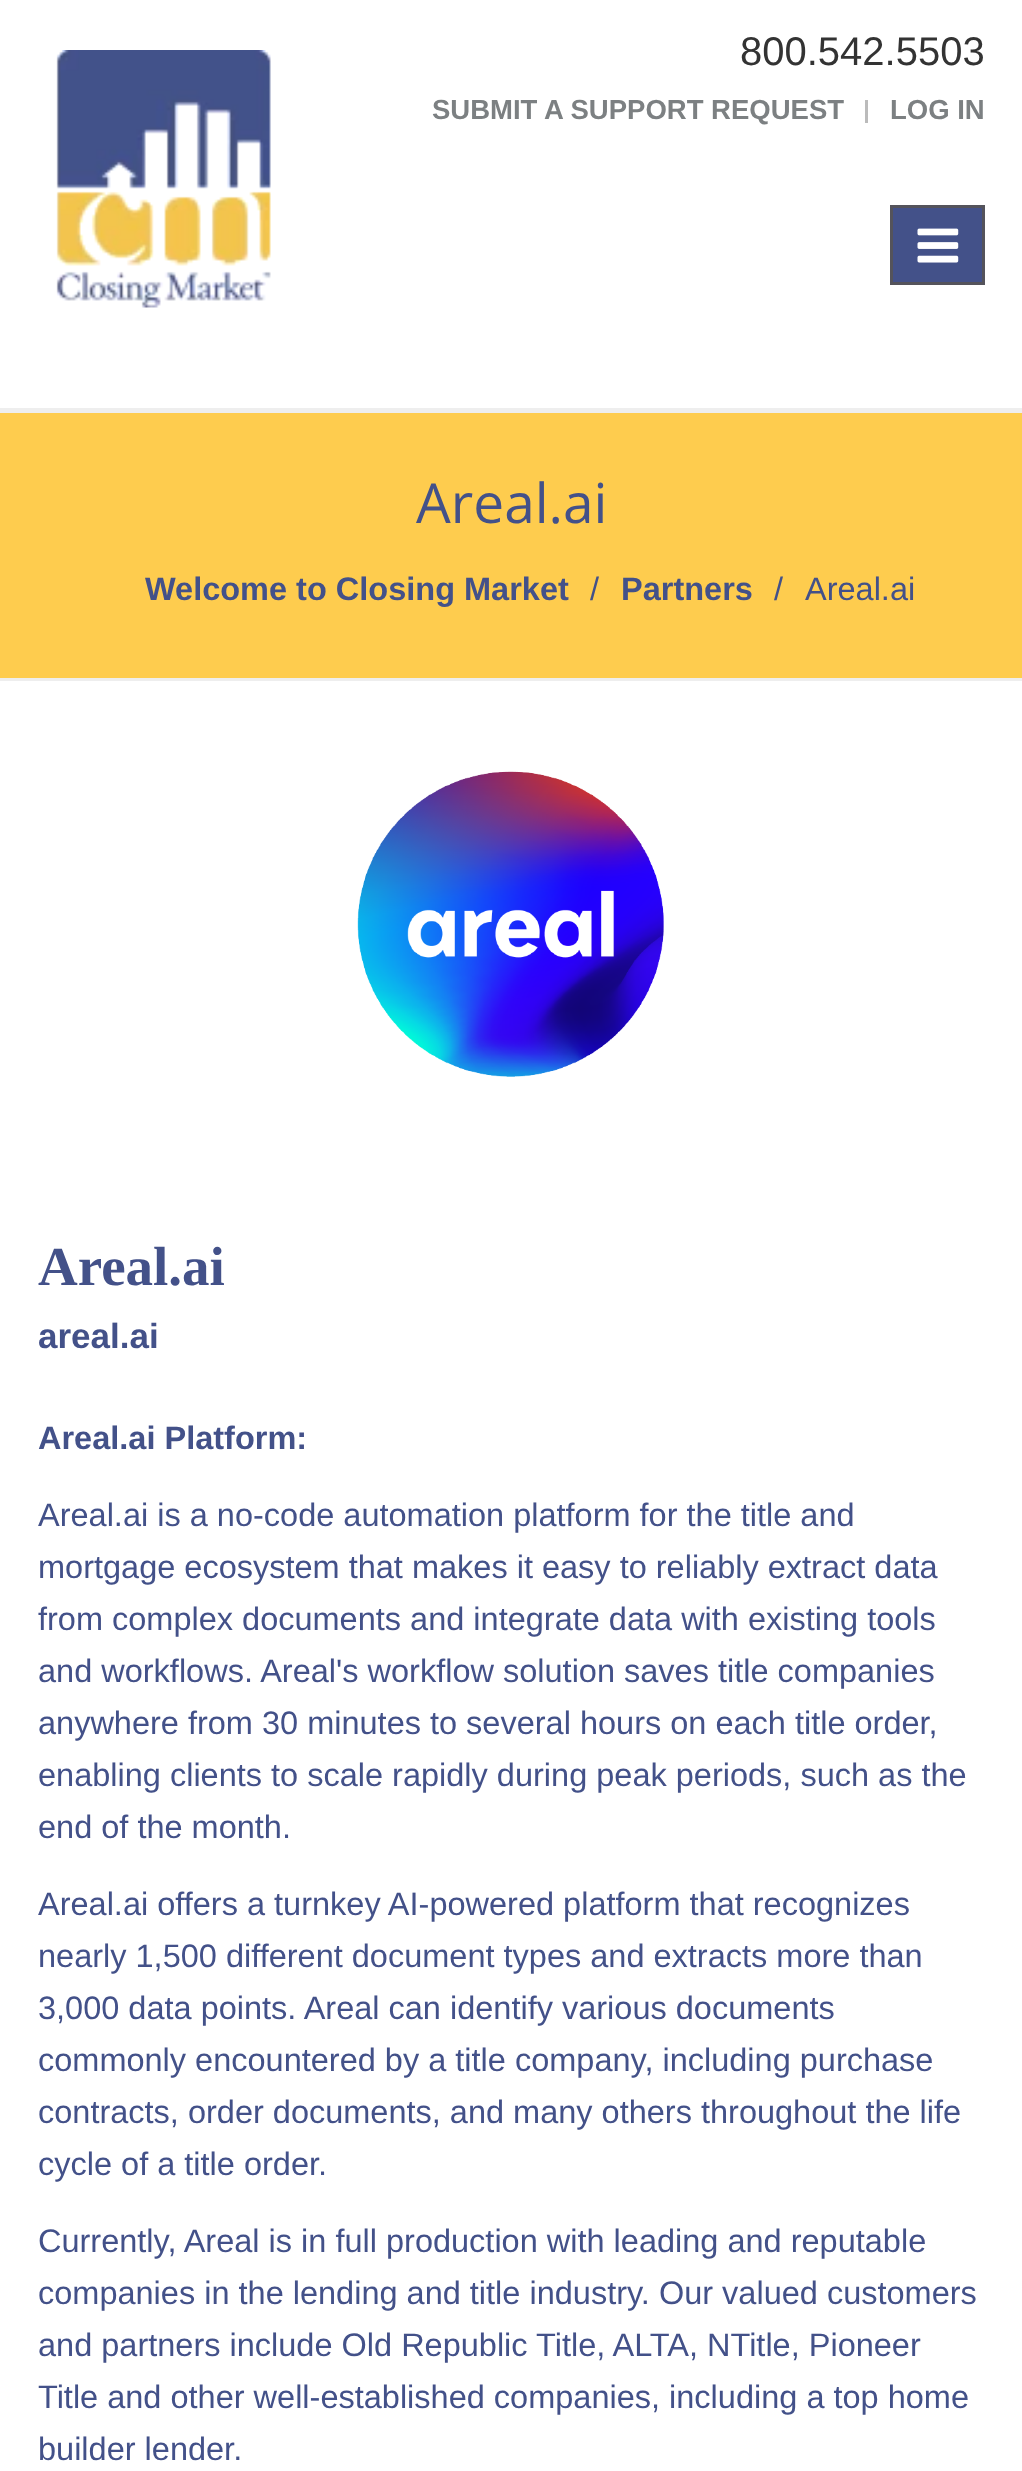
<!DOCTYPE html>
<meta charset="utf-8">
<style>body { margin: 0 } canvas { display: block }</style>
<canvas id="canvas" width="1022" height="2471"></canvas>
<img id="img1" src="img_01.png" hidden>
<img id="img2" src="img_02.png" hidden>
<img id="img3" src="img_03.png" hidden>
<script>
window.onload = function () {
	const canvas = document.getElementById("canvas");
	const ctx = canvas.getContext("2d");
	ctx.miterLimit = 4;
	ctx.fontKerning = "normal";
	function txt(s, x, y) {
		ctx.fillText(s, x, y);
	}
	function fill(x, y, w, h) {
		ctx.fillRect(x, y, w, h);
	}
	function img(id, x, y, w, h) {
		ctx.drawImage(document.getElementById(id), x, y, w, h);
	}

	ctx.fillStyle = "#FFFFFF";
	fill(0, 0, 1022, 2471);
	ctx.fillStyle = "#EEEEEE";
	fill(0, 408, 1022, 5);
	img("img1", 56, 50, 215, 258);
	ctx.fillStyle = "#BBBBBB";
	fill(865, 100, 3, 23);
	ctx.fillStyle = "#435189";
	ctx.beginPath();
	ctx.rect(891.5, 206.5, 92, 77);
	ctx.fill();
	ctx.strokeStyle = "#54535B";
	ctx.lineWidth = 3;
	ctx.stroke();
	img("img2", 917, 228, 42, 35);
	ctx.fillStyle = "#FECC4E";
	fill(0, 413, 1022, 265);
	ctx.fillStyle = "#EEEEEE";
	fill(0, 678, 1022, 3);
	img("img3", 357, 771, 307, 306);
	ctx.font = "40px Liberation Sans";
	ctx.fillStyle = "#333333";
	txt("800.542.5503", 740, 65);
	ctx.font = "bold 27.5px Liberation Sans";
	ctx.fillStyle = "#7C8082";
	txt("SUBMIT A SUPPORT REQUEST", 432, 119);
	txt("LOG IN", 890, 119);
	ctx.font = "55px Open Sans";
	ctx.fillStyle = "#435189";
	txt("Areal.ai", 416, 523);
	ctx.font = "bold 32.5px Liberation Sans";
	txt("Welcome to Closing Market", 145, 600);
	ctx.font = "32.5px Liberation Sans";
	txt("/", 590, 600);
	ctx.font = "bold 32.5px Liberation Sans";
	txt("Partners", 621, 600);
	ctx.font = "32.5px Liberation Sans";
	txt("/", 774, 600);
	txt("Areal.ai", 805, 600);
	ctx.font = "bold 55px Liberation Serif";
	txt("Areal.ai", 38, 1285);
	ctx.font = "bold 35px Liberation Sans";
	txt("areal.ai", 38, 1348);
	ctx.font = "bold 32.5px Liberation Sans";
	txt("Areal.ai Platform:", 38, 1449);
	ctx.font = "32.5px Liberation Sans";
	txt("Areal.ai is a no-code automation platform for the title and", 38, 1526);
	txt("mortgage ecosystem that makes it easy to reliably extract data", 38, 1578);
	txt("from complex documents and integrate data with existing tools", 38, 1630);
	txt("and workflows. Areal's workflow solution saves title companies", 38, 1682);
	txt("anywhere from 30 minutes to several hours on each title order,", 38, 1734);
	txt("enabling clients to scale rapidly during peak periods, such as the", 38, 1786);
	txt("end of the month.", 38, 1838);
	txt("Areal.ai offers a turnkey AI-powered platform that recognizes", 38, 1915);
	txt("nearly 1,500 different document types and extracts more than", 38, 1967);
	txt("3,000 data points. Areal can identify various documents", 38, 2019);
	txt("commonly encountered by a title company, including purchase", 38, 2071);
	txt("contracts, order documents, and many others throughout the life", 38, 2123);
	txt("cycle of a title order.", 38, 2175);
	txt("Currently, Areal is in full production with leading and reputable", 38, 2252);
	txt("companies in the lending and title industry. Our valued customers", 38, 2304);
	txt("and partners include Old Republic Title, ALTA, NTitle, Pioneer", 38, 2356);
	txt("Title and other well-established companies, including a top home", 38, 2408);
	txt("builder lender.", 38, 2460);
};
</script>
